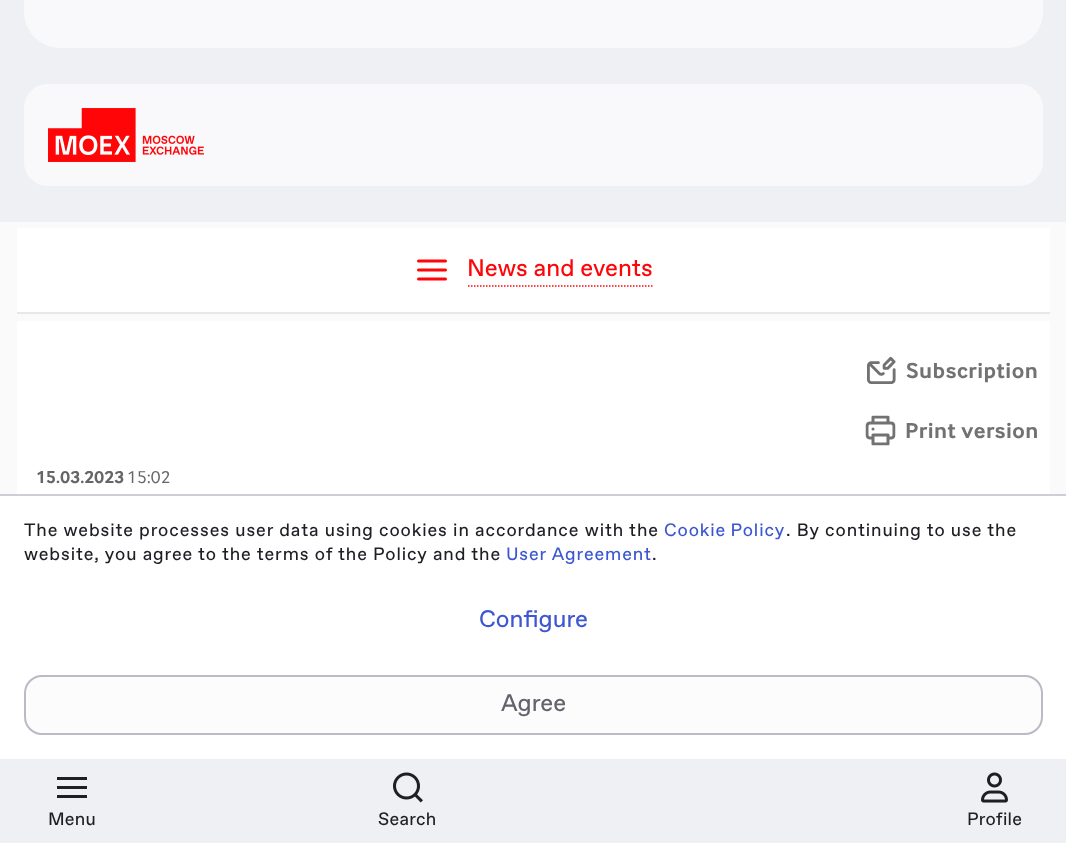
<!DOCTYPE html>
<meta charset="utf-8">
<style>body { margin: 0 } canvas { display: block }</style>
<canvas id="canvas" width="1066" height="843"></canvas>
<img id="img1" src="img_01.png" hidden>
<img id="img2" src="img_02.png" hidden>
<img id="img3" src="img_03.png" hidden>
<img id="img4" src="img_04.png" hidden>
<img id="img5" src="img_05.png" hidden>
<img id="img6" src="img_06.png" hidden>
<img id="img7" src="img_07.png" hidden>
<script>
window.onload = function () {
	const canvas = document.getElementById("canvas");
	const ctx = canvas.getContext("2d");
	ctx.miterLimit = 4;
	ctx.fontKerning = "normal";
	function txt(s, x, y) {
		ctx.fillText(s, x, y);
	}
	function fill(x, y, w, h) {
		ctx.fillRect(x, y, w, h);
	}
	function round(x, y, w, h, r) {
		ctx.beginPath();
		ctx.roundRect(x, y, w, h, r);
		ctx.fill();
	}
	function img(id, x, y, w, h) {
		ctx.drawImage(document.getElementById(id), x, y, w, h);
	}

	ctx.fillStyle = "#FAFAFA";
	fill(0, 0, 1066, 843);
	ctx.fillStyle = "#EFF0F3";
	fill(0, 0, 1066, 222);
	ctx.fillStyle = "#F9F9FB";
	ctx.beginPath();
	ctx.roundRect(24, 0, 1019, 48, [0, 0, 36, 36]);
	ctx.fill();
	ctx.fillStyle = "#FFFFFF";
	fill(17, 228, 1033, 84);
	ctx.fillStyle = "#E8E8E8";
	fill(17, 312, 1033, 2);
	img("img1", 417, 259, 30, 22);
	ctx.beginPath();
	ctx.moveTo(468, 286);
	ctx.lineTo(652.5, 286);
	ctx.strokeStyle = "#FF0508";
	ctx.lineWidth = 1.5;
	ctx.setLineDash([1.5, 1.5]);
	ctx.stroke();
	ctx.fillStyle = "#FFFFFF";
	fill(17, 321, 1033, 173);
	img("img2", 867, 356, 29, 28);
	img("img3", 865, 415, 31, 31);
	ctx.fillStyle = "#F9F9FB";
	round(24, 84, 1019, 102, 24);
	img("img4", 48, 108, 156, 54);
	ctx.fillStyle = "#EFF0F3";
	fill(0, 759, 1066, 84);
	img("img5", 57, 777, 30, 21);
	img("img6", 393, 772, 30, 31);
	img("img7", 981, 772, 27, 31);
	ctx.fillStyle = "#FFFFFF";
	fill(0, 496, 1066, 263);
	ctx.fillStyle = "#CDCED7";
	fill(0, 494, 1066, 2);
	ctx.fillStyle = "#FCFCFD";
	ctx.beginPath();
	ctx.roundRect(25, 676, 1017, 58, 17);
	ctx.fill();
	ctx.strokeStyle = "#B9BBC6";
	ctx.lineWidth = 2;
	ctx.setLineDash([]);
	ctx.stroke();
	ctx.font = "24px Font";
	ctx.fillStyle = "#FF0508";
	txt("News and events", 467, 276);
	ctx.letterSpacing = "0.5px";
	ctx.font = "bold 22.5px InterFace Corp";
	ctx.fillStyle = "#727272";
	txt("Subscription", 906, 378);
	txt("Print version", 905, 438);
	ctx.letterSpacing = "0.25px";
	ctx.font = "bold 18px InterFace Corp";
	ctx.fillStyle = "#666666";
	txt("15.03.2023", 36, 483);
	ctx.font = "18px InterFace Corp";
	txt("15:02", 127, 483);
	ctx.font = "18px Font";
	ctx.fillStyle = "#1E1F24";
	txt("Menu", 48, 825);
	txt("Search", 378, 825);
	txt("Profile", 967, 825);
	ctx.letterSpacing = "0.9px";
	txt("The website processes user data using cookies in accordance with the", 24, 536);
	ctx.wordSpacing = "-1px";
	ctx.fillStyle = "#3D57D0";
	txt("Cookie Policy", 664, 536);
	ctx.wordSpacing = "0px";
	ctx.fillStyle = "#1E1F24";
	txt(". By continuing to use the", 786, 536);
	txt("website, you agree to the terms of the Policy and the", 24, 560);
	ctx.fillStyle = "#3D57D0";
	txt("User Agreement", 506, 560);
	ctx.fillStyle = "#1E1F24";
	txt(".", 652, 560);
	ctx.letterSpacing = "0px";
	ctx.font = "24px Font";
	ctx.fillStyle = "#3D57D0";
	txt("Configure", 479, 627);
	ctx.fillStyle = "#62636C";
	txt("Agree", 501, 711);
};
</script>
